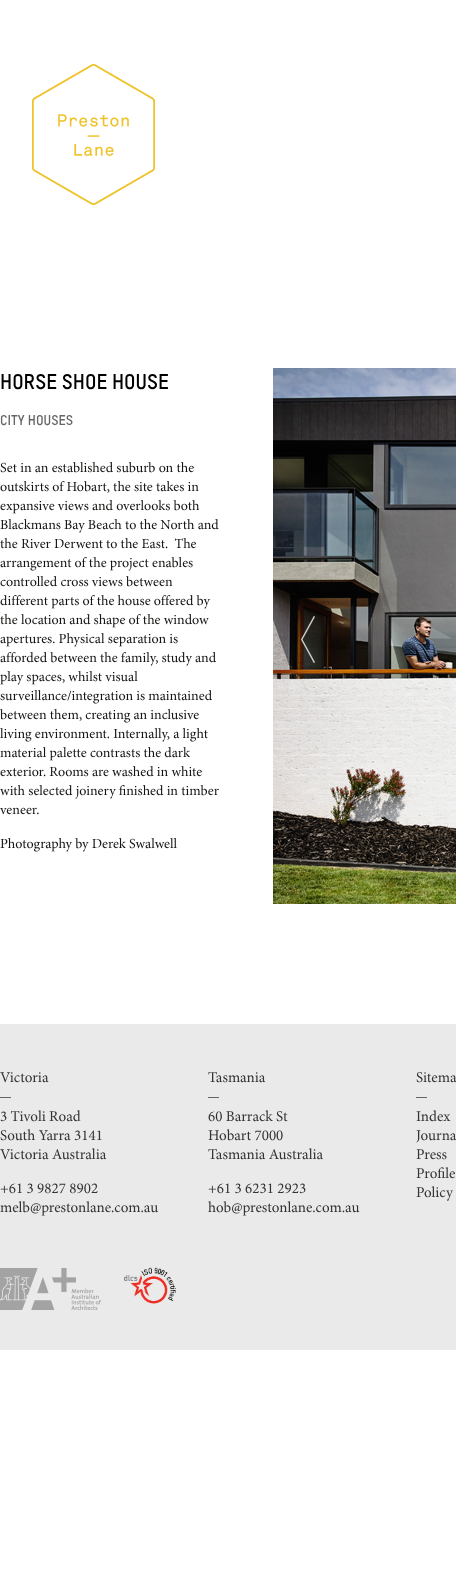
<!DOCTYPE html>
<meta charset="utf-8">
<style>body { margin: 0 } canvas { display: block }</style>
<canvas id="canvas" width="456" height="1589"></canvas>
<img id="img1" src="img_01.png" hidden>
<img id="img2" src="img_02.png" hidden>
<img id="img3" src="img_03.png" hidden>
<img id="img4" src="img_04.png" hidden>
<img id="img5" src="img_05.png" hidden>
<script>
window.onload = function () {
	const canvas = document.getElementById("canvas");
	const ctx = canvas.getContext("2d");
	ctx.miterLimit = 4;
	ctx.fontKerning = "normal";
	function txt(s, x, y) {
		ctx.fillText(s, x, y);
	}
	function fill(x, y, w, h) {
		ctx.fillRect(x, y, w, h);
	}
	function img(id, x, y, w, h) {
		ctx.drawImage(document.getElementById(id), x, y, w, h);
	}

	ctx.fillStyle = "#FFFFFF";
	fill(0, 0, 456, 1589);
	img("img1", 32, 64, 123, 141);
	img("img2", 273, 368, 183, 536);
	img("img3", 301, 616, 14, 47);
	ctx.fillStyle = "#EAEAEA";
	fill(0, 1024, 456, 326);
	ctx.fillStyle = "#666666";
	fill(0, 1097, 11, 1);
	fill(208, 1097, 11, 1);
	fill(416, 1097, 11, 1);
	img("img4", 0, 1268, 101, 42);
	img("img5", 124, 1267, 52, 37);
	ctx.font = "bold 21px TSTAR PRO";
	ctx.fillStyle = "#000000";
	txt("HORSE SHOE HOUSE", 0, 389);
	ctx.font = "bold 14px TSTAR PRO";
	ctx.fillStyle = "#666666";
	txt("CITY HOUSES", 0, 425);
	ctx.font = "14px Minion";
	ctx.fillStyle = "#141412";
	txt("Set in an established suburb on the", 0, 472);
	txt("outskirts of Hobart, the site takes in", 0, 491);
	txt("expansive views and overlooks both", 0, 510);
	txt("Blackmans Bay Beach to the North and", 0, 529);
	txt("the River Derwent to the East.  The", 0, 548);
	txt("arrangement of the project enables", 0, 567);
	txt("controlled cross views between", 0, 586);
	txt("different parts of the house offered by", 0, 605);
	txt("the location and shape of the window", 0, 624);
	txt("apertures. Physical separation is", 0, 643);
	txt("afforded between the family, study and", 0, 662);
	txt("play spaces, whilst visual", 0, 681);
	txt("surveillance/integration is maintained", 0, 700);
	txt("between them, creating an inclusive", 0, 719);
	txt("living environment. Internally, a light", 0, 738);
	txt("material palette contrasts the dark", 0, 757);
	txt("exterior. Rooms are washed in white", 0, 776);
	txt("with selected joinery finished in timber", 0, 795);
	txt("veneer.", 0, 814);
	txt("Photography by Derek Swalwell", 0, 848);
	ctx.font = "15px Minion";
	ctx.fillStyle = "#333333";
	txt("Victoria", 0, 1082);
	txt("3 Tivoli Road", 0, 1121);
	txt("South Yarra 3141", 0, 1140);
	txt("Victoria Australia", 0, 1159);
	txt("+61 3 9827 8902", 0, 1193);
	txt("melb@prestonlane.com.au", 0, 1212);
	txt("Tasmania", 208, 1082);
	txt("60 Barrack St", 208, 1121);
	txt("Hobart 7000", 208, 1140);
	txt("Tasmania Australia", 208, 1159);
	txt("+61 3 6231 2923", 208, 1193);
	txt("hob@prestonlane.com.au", 208, 1212);
	txt("Sitema", 416, 1082);
	txt("Index", 416, 1121);
	txt("Journa", 416, 1140);
	txt("Press", 416, 1159);
	txt("Profile", 416, 1178);
	txt("Policy", 416, 1197);
};
</script>
